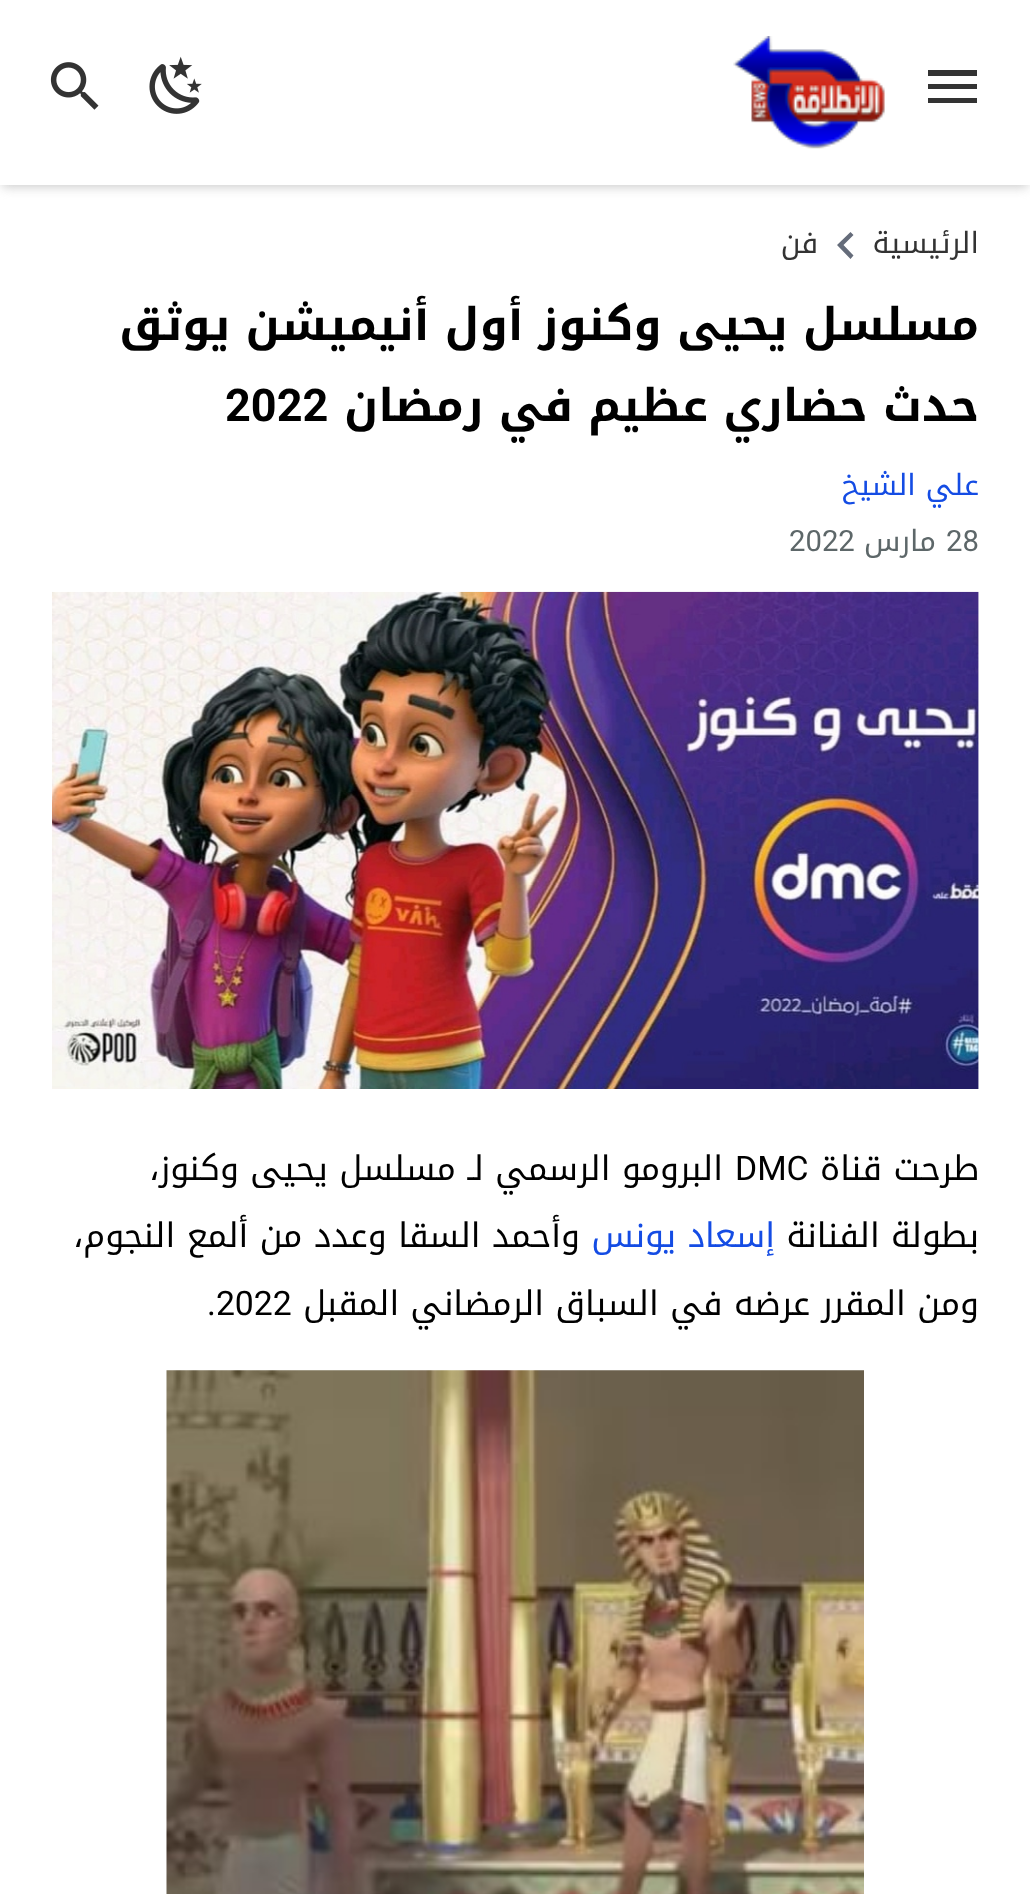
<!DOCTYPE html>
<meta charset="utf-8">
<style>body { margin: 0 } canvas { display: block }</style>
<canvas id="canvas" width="1030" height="1894"></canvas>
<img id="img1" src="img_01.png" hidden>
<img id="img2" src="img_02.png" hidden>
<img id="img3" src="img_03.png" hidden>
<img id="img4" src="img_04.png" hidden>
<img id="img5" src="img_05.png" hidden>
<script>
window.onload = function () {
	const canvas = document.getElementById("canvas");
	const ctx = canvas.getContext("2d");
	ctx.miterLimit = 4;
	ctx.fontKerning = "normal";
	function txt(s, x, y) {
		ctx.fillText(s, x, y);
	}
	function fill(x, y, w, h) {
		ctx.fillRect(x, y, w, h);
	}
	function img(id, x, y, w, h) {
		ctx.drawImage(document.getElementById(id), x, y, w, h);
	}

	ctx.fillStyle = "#FFFFFF";
	fill(0, 0, 1030, 1894);
	ctx.fillStyle = "#CCCCCC";
	ctx.filter = "blur(5.5px)";
	ctx.beginPath();
	ctx.rect(2, 7, 1026, 180);
	ctx.fill();
	ctx.filter = "none";
	ctx.fillStyle = "#FFFFFF";
	fill(0, 0, 1030, 185);
	ctx.fillStyle = "#333333";
	ctx.beginPath();
	ctx.moveTo(928, 70);
	ctx.lineTo(977, 70);
	ctx.lineTo(977, 76);
	ctx.lineTo(928, 76);
	ctx.lineTo(928, 70);
	ctx.moveTo(928, 84);
	ctx.lineTo(977, 84);
	ctx.lineTo(977, 89);
	ctx.lineTo(928, 89);
	ctx.lineTo(928, 84);
	ctx.moveTo(928, 98);
	ctx.lineTo(977, 98);
	ctx.lineTo(977, 103);
	ctx.lineTo(928, 103);
	ctx.closePath();
	ctx.fill();
	img("img1", 733, 36, 152, 113);
	img("img2", 149, 56, 53, 58);
	img("img3", 50, 62, 49, 48);
	ctx.fillStyle = "#656C7A";
	ctx.beginPath();
	ctx.moveTo(853.5, 255.5);
	ctx.lineTo(843.5, 245);
	ctx.lineTo(853.5, 235);
	ctx.lineTo(850.5, 232);
	ctx.lineTo(837, 245);
	ctx.lineTo(850.5, 259);
	ctx.closePath();
	ctx.fill();
	img("img4", 52, 591, 927, 498);
	img("img5", 166, 1370, 698, 524);
	ctx.direction = "rtl";
	ctx.font = "29.25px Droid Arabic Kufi";
	ctx.fillStyle = "#333333";
	txt("الرئيسية", 979, 253);
	txt("فن", 818, 253);
	ctx.font = "bold 45px Droid Arabic Kufi";
	ctx.fillStyle = "#000000";
	txt("مسلسل يحيى وكنوز أول أنيميشن يوثق", 979, 340);
	txt("حدث حضاري عظيم في رمضان", 979, 421);
	ctx.direction = "ltr";
	ctx.font = "bold 45px Roboto";
	txt("2022", 225, 421);
	ctx.direction = "rtl";
	ctx.font = "29.25px Droid Arabic Kufi";
	ctx.fillStyle = "#144CE4";
	txt("علي الشيخ", 979, 495);
	ctx.direction = "ltr";
	ctx.font = "29.25px Roboto";
	ctx.fillStyle = "#5D6769";
	txt("28", 946, 551);
	ctx.direction = "rtl";
	ctx.font = "29.25px Droid Arabic Kufi";
	txt("مارس", 936, 551);
	ctx.direction = "ltr";
	ctx.font = "29.25px Roboto";
	txt("2022", 789, 551);
	ctx.direction = "rtl";
	ctx.font = "33.75px Droid Arabic Kufi";
	ctx.fillStyle = "#000000";
	txt("طرحت قناة", 979, 1180);
	ctx.direction = "ltr";
	ctx.font = "33.75px Roboto";
	txt("DMC", 735, 1180);
	ctx.direction = "rtl";
	ctx.font = "33.75px Droid Arabic Kufi";
	txt("البرومو الرسمي لـ مسلسل يحيى وكنوز،", 723, 1180);
	txt("بطولة الفنانة", 979, 1247);
	ctx.fillStyle = "#144CE4";
	txt("إسعاد يونس", 775, 1247);
	ctx.fillStyle = "#000000";
	txt("وأحمد السقا وعدد من ألمع النجوم،", 580, 1247);
	txt("ومن المقرر عرضه في السباق الرمضاني المقبل", 979, 1315);
	ctx.direction = "ltr";
	ctx.font = "33.75px Roboto";
	txt(".2022", 207, 1315);
};
</script>
